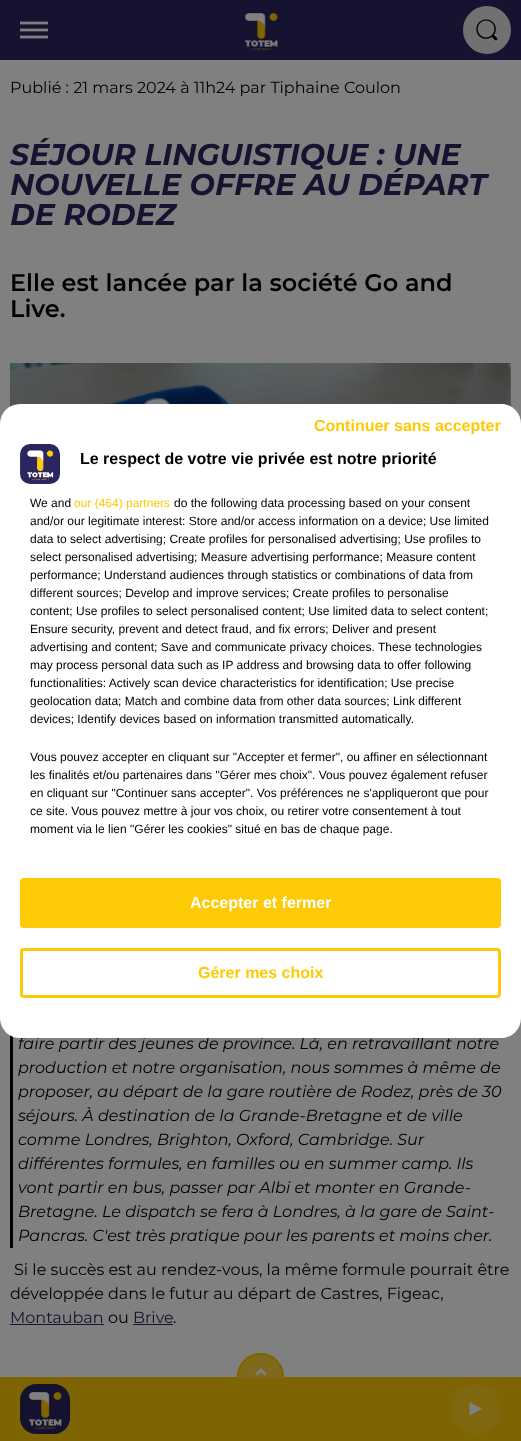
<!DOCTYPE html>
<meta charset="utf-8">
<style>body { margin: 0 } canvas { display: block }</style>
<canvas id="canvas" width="521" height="1441"></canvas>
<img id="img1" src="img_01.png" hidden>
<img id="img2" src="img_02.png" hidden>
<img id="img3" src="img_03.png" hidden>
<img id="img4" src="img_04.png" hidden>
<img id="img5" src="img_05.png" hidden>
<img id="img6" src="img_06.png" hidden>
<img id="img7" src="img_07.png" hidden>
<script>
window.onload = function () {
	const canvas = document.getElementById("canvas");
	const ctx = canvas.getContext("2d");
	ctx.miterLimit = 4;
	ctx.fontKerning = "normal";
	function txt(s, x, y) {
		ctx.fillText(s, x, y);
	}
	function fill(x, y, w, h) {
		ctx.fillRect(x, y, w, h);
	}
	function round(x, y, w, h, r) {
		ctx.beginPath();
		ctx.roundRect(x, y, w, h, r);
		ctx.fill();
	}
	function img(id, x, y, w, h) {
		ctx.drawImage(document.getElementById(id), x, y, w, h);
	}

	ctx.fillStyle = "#808080";
	fill(0, 0, 521, 1441);
	ctx.fillStyle = "#161330";
	fill(0, 0, 521, 60);
	img("img1", 20, 21, 28, 18);
	img("img2", 244, 12, 34, 39);
	ctx.fillStyle = "#717171";
	ctx.beginPath();
	ctx.arc(487, 30, 23, 0, Math.PI * 2);
	ctx.fill();
	ctx.strokeStyle = "#717171";
	ctx.lineWidth = 2;
	ctx.stroke();
	img("img3", 476, 19, 22, 22);
	ctx.fillStyle = "#7F6403";
	fill(0, 1377, 521, 64);
	ctx.save();
	ctx.beginPath();
	ctx.rect(0, 1352, 521, 26);
	ctx.clip();
	ctx.beginPath();
	ctx.arc(260.5, 1376.5, 23.5, 0, Math.PI * 2);
	ctx.fill();
	ctx.fillStyle = "rgba(128, 128, 128, 0.2)";
	ctx.beginPath();
	ctx.arc(260.5, 1376.5, 22.5, 0, Math.PI * 2);
	ctx.fill();
	ctx.strokeStyle = "#7F6403";
	ctx.stroke();
	ctx.restore();
	img("img4", 255, 1368, 12, 8);
	img("img5", 20, 1384, 50, 50);
	ctx.fillStyle = "#7F6710";
	ctx.beginPath();
	ctx.arc(476, 1409, 25, 0, Math.PI * 2);
	ctx.fill();
	ctx.fillStyle = "#808080";
	ctx.beginPath();
	ctx.moveTo(482.5, 1409);
	ctx.lineTo(469.5, 1415.5);
	ctx.lineTo(469.5, 1402.5);
	ctx.closePath();
	ctx.fill();
	img("img6", 10, 363, 501, 44);
	ctx.fillStyle = "#000000";
	fill(10, 1035, 3, 213);
	ctx.fillStyle = "#161330";
	fill(10, 1324, 94, 1);
	fill(133, 1324, 40, 1);
	ctx.font = "16px Montserrat";
	ctx.fillStyle = "#000000";
	txt("Publié : 21 mars 2024 à 11h24 par Tiphaine Coulon", 10, 93);
	ctx.font = "italic bold 30px Montserrat";
	ctx.fillStyle = "#161330";
	txt("SÉJOUR LINGUISTIQUE : UNE", 10, 165);
	txt("NOUVELLE OFFRE AU DÉPART", 10, 195);
	txt("DE RODEZ", 10, 225);
	ctx.font = "600 24px Montserrat";
	ctx.fillStyle = "#000000";
	txt("Elle est lancée par la société Go and", 10, 291);
	txt("Live.", 10, 317);
	ctx.font = "italic 16px Montserrat";
	txt("faire partir des jeunes de province. Là, en retravaillant notre", 18, 1049);
	txt("production et notre organisation, nous sommes à même de", 18, 1073);
	txt("proposer, au départ de la gare routière de Rodez, près de 30", 18, 1097);
	txt("séjours. À destination de la Grande-Bretagne et de ville", 18, 1121);
	txt("comme Londres, Brighton, Oxford, Cambridge. Sur", 18, 1145);
	txt("différentes formules, en familles ou en summer camp. Ils", 18, 1169);
	txt("vont partir en bus, passer par Albi et monter en Grande-", 18, 1193);
	txt("Bretagne. Le dispatch se fera à Londres, à la gare de Saint-", 18, 1217);
	txt("Pancras. C'est très pratique pour les parents et moins cher.", 18, 1241);
	ctx.font = "16px Montserrat";
	txt("Si le succès est au rendez-vous, la même formule pourrait être", 14, 1275);
	txt("développée dans le futur au départ de Castres, Figeac,", 10, 1299);
	ctx.fillStyle = "#161330";
	txt("Montauban", 10, 1323);
	ctx.fillStyle = "#000000";
	txt("ou", 108, 1323);
	ctx.fillStyle = "#161330";
	txt("Brive", 133, 1323);
	ctx.fillStyle = "#000000";
	txt(".", 173, 1323);
	ctx.fillStyle = "#FFFFFF";
	round(0, 404, 521, 634, 20);
	ctx.save();
	ctx.beginPath();
	ctx.roundRect(0, 404, 521, 634, 20);
	ctx.clip();
	round(304, 404, 207, 44, 4);
	ctx.restore();
	ctx.font = "bold 16px Liberation Sans";
	ctx.fillStyle = "#FEC905";
	txt("Continuer sans accepter", 314, 431);
	ctx.beginPath();
	ctx.roundRect(21.5, 879.5, 478, 47, 2.5);
	ctx.fill();
	ctx.strokeStyle = "#FEC905";
	ctx.lineWidth = 3;
	ctx.stroke();
	ctx.fillStyle = "#FFFFFF";
	txt("Accepter et fermer", 190, 908);
	ctx.beginPath();
	ctx.roundRect(21.5, 949.5, 478, 47, 2.5);
	ctx.stroke();
	ctx.fillStyle = "#FEC905";
	txt("Gérer mes choix", 198, 978);
	img("img7", 20, 444, 40, 40);
	ctx.fillStyle = "#000000";
	txt("Le respect de votre vie privée est notre priorité", 80, 464);
	ctx.font = "12px Liberation Sans";
	txt("We and", 30, 507);
	ctx.fillStyle = "#FEC905";
	txt("our (464) partners", 74, 507);
	ctx.fillStyle = "#000000";
	txt("do the following data processing based on your consent", 174, 507);
	txt("and/or our legitimate interest: Store and/or access information on a device; Use limited", 30, 525);
	txt("data to select advertising; Create profiles for personalised advertising; Use profiles to", 30, 543);
	txt("select personalised advertising; Measure advertising performance; Measure content", 30, 561);
	txt("performance; Understand audiences through statistics or combinations of data from", 30, 579);
	txt("different sources; Develop and improve services; Create profiles to personalise", 30, 597);
	txt("content; Use profiles to select personalised content; Use limited data to select content;", 30, 615);
	txt("Ensure security, prevent and detect fraud, and fix errors; Deliver and present", 30, 633);
	txt("advertising and content; Save and communicate privacy choices. These technologies", 30, 651);
	txt("may process personal data such as IP address and browsing data to offer following", 30, 669);
	txt("functionalities: Actively scan device characteristics for identification; Use precise", 30, 687);
	txt("geolocation data; Match and combine data from other data sources; Link different", 30, 705);
	txt("devices; Identify devices based on information transmitted automatically.", 30, 723);
	txt("Vous pouvez accepter en cliquant sur \"Accepter et fermer\", ou affiner en sélectionnant", 30, 761);
	txt("les finalités et/ou partenaires dans \"Gérer mes choix\". Vous pouvez également refuser", 30, 779);
	txt("en cliquant sur \"Continuer sans accepter\". Vos préférences ne s'appliqueront que pour", 30, 797);
	txt("ce site. Vous pouvez mettre à jour vos choix, ou retirer votre consentement à tout", 30, 815);
	txt("moment via le lien \"Gérer les cookies\" situé en bas de chaque page.", 30, 833);
};
</script>
